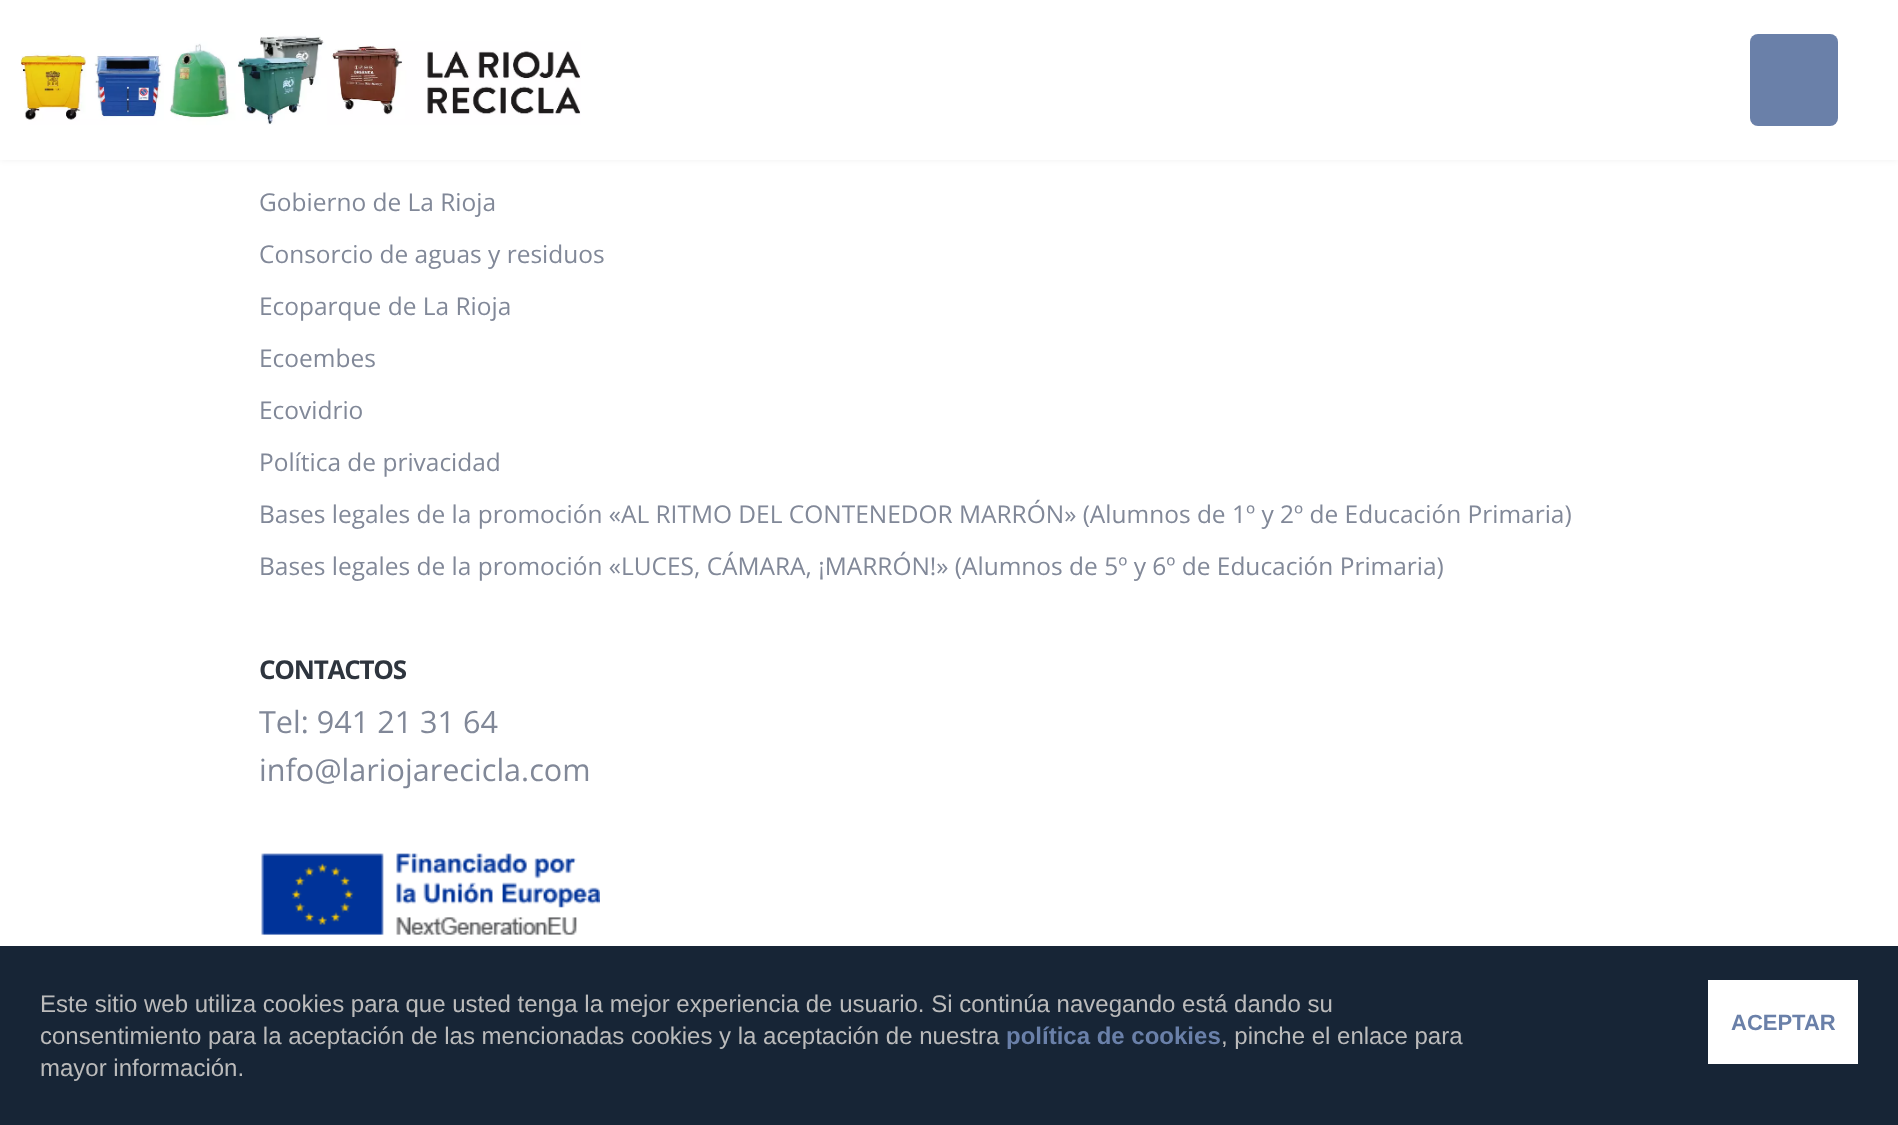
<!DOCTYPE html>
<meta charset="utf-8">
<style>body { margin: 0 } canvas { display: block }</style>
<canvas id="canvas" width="1898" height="1125"></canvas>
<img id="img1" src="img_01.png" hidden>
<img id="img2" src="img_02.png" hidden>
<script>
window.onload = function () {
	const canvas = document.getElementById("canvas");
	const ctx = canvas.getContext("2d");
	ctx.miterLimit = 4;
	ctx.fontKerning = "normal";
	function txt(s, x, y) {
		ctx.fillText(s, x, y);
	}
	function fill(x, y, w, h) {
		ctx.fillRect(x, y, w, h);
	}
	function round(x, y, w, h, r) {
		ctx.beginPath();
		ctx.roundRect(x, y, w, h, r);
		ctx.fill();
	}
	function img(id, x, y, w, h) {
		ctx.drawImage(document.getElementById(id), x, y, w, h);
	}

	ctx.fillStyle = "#FFFFFF";
	fill(0, 0, 1898, 1125);
	ctx.fillStyle = "rgba(0, 0, 0, 0.06)";
	ctx.filter = "blur(3px)";
	ctx.beginPath();
	ctx.rect(0, 0, 1898, 160);
	ctx.fill();
	ctx.filter = "none";
	ctx.fillStyle = "#FFFFFF";
	fill(0, 0, 1898, 160);
	img("img1", 20, 35, 561, 90);
	ctx.fillStyle = "#6A80A9";
	round(1750, 34, 88, 92, 8);
	img("img2", 261, 853, 339, 82);
	ctx.fillStyle = "#172536";
	fill(0, 946, 1898, 179);
	ctx.fillStyle = "#FFFFFF";
	fill(1708, 980, 150, 84);
	ctx.font = "24.48px Open Sans";
	ctx.fillStyle = "#818898";
	txt("Gobierno de La Rioja", 259, 211);
	txt("Consorcio de aguas y residuos", 259, 263);
	txt("Ecoparque de La Rioja", 259, 315);
	txt("Ecoembes", 259, 367);
	txt("Ecovidrio", 259, 419);
	txt("Política de privacidad", 259, 471);
	txt("Bases legales de la promoción «AL RITMO DEL CONTENEDOR MARRÓN» (Alumnos de 1º y 2º de Educación Primaria)", 259, 523);
	txt("Bases legales de la promoción «LUCES, CÁMARA, ¡MARRÓN!» (Alumnos de 5º y 6º de Educación Primaria)", 259, 575);
	ctx.letterSpacing = "-1.25px";
	ctx.font = "bold 26px Open Sans";
	ctx.fillStyle = "#2E353E";
	txt("CONTACTOS", 259, 679);
	ctx.letterSpacing = "0px";
	ctx.font = "30.6px Open Sans";
	ctx.fillStyle = "#818898";
	txt("Tel: 941 21 31 64", 259, 733);
	txt("info@lariojarecicla.com", 259, 781);
	ctx.font = "24px Liberation Sans";
	ctx.fillStyle = "#BBBBBB";
	txt("Este sitio web utiliza cookies para que usted tenga la mejor experiencia de usuario. Si continúa navegando está dando su", 40, 1012);
	txt("consentimiento para la aceptación de las mencionadas cookies y la aceptación de nuestra", 40, 1044);
	ctx.font = "bold 24px Liberation Sans";
	ctx.fillStyle = "#6A80A9";
	txt("política de cookies", 1006, 1044);
	ctx.font = "24px Liberation Sans";
	ctx.fillStyle = "#BBBBBB";
	txt(", pinche el enlace para", 1221, 1044);
	txt("mayor información.", 40, 1076);
	ctx.font = "bold 22px Liberation Sans";
	ctx.fillStyle = "#6A80A9";
	txt("ACEPTAR", 1731, 1030);
};
</script>
